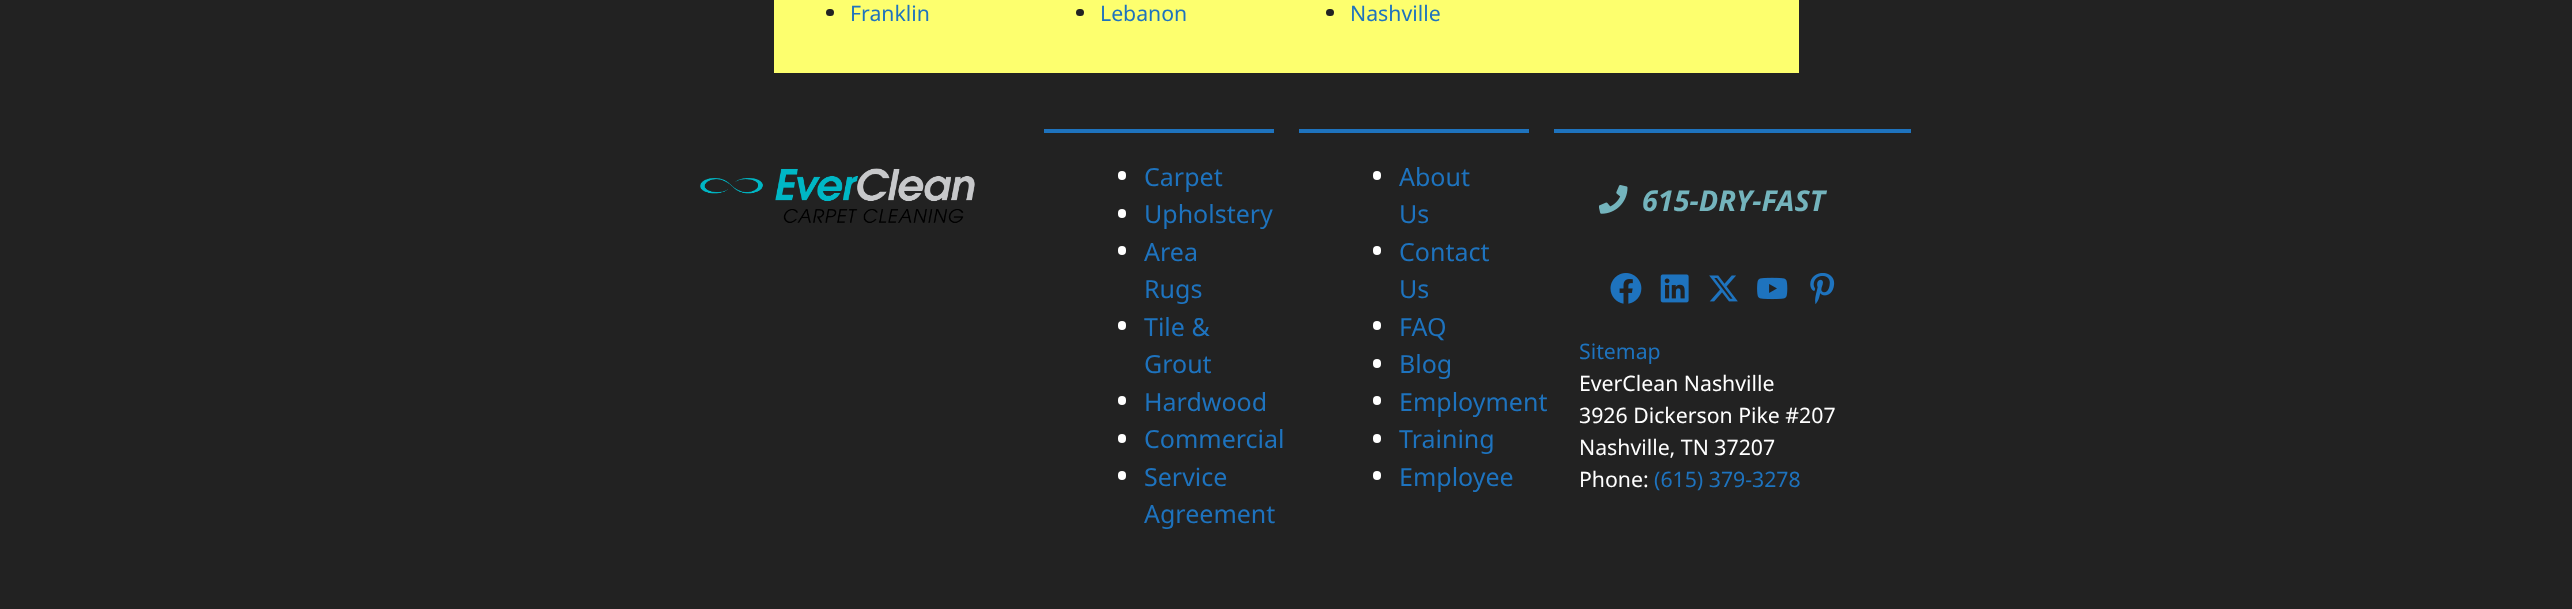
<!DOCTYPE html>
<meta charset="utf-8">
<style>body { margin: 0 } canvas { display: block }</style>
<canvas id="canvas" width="2572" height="609"></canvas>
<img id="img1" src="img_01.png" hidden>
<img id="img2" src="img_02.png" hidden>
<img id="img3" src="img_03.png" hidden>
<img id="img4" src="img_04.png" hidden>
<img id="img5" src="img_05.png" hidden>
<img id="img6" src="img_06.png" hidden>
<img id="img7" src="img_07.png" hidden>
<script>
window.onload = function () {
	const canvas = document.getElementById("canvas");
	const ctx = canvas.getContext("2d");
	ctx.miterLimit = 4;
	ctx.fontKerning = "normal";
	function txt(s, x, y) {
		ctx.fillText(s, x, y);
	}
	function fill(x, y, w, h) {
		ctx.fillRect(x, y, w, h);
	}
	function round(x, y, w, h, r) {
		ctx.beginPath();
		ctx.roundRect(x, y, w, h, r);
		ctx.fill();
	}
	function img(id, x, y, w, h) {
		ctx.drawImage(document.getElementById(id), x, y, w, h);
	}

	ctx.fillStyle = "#222222";
	fill(0, 0, 2572, 609);
	ctx.fillStyle = "#FDFF6E";
	fill(774, 0, 1025, 73);
	ctx.fillStyle = "#222222";
	round(826, 9, 8, 7, 3.5);
	round(1076, 9, 8, 7, 3.5);
	round(1326, 9, 8, 7, 3.5);
	img("img1", 700, 168, 275, 55);
	ctx.fillStyle = "#1E73BE";
	fill(1044, 129, 230, 4);
	ctx.fillStyle = "#FFFFFF";
	round(1118, 171, 8, 9, 4);
	round(1118, 209, 8, 9, 4);
	round(1118, 246, 8, 9, 4);
	round(1118, 321, 8, 9, 4);
	round(1118, 396, 8, 9, 4);
	round(1118, 434, 8, 9, 4);
	round(1118, 471, 8, 9, 4);
	ctx.fillStyle = "#1E73BE";
	fill(1299, 129, 230, 4);
	ctx.fillStyle = "#FFFFFF";
	round(1373, 171, 8, 9, 4);
	round(1373, 246, 8, 9, 4);
	round(1373, 321, 8, 9, 4);
	round(1373, 359, 8, 9, 4);
	round(1373, 396, 8, 9, 4);
	round(1373, 434, 8, 9, 4);
	round(1373, 471, 8, 9, 4);
	ctx.fillStyle = "#1E73BE";
	fill(1554, 129, 357, 4);
	img("img2", 1599, 185, 29, 29);
	img("img3", 1610, 273, 32, 31);
	img("img4", 1660, 274, 29, 29);
	img("img5", 1709, 275, 29, 27);
	img("img6", 1757, 277, 31, 23);
	img("img7", 1810, 273, 25, 31);
	ctx.font = "21.25px Noto Sans";
	txt("Franklin", 850, 21);
	txt("Lebanon", 1100, 21);
	txt("Nashville", 1350, 21);
	ctx.font = "25px Noto Sans";
	txt("Carpet", 1144, 186);
	txt("Upholstery", 1144, 223);
	txt("Area", 1144, 261);
	txt("Rugs", 1144, 298);
	txt("Tile &", 1144, 336);
	txt("Grout", 1144, 373);
	txt("Hardwood", 1144, 411);
	txt("Commercial", 1144, 448);
	txt("Service", 1144, 486);
	txt("Agreement", 1144, 523);
	txt("About", 1399, 186);
	txt("Us", 1399, 223);
	txt("Contact", 1399, 261);
	txt("Us", 1399, 298);
	txt("FAQ", 1399, 336);
	txt("Blog", 1399, 373);
	txt("Employment", 1399, 411);
	txt("Training", 1399, 448);
	txt("Employee", 1399, 486);
	ctx.font = "italic bold 28.75px Noto Sans";
	ctx.fillStyle = "#74B4BD";
	txt("615-DRY-FAST", 1642, 211);
	ctx.font = "21.25px Noto Sans";
	ctx.fillStyle = "#1E73BE";
	txt("Sitemap", 1579, 359);
	ctx.fillStyle = "#FFFFFF";
	txt("EverClean Nashville", 1579, 391);
	txt("3926 Dickerson Pike #207", 1579, 423);
	txt("Nashville, TN 37207", 1579, 455);
	txt("Phone:", 1579, 487);
	ctx.fillStyle = "#1E73BE";
	txt("(615) 379-3278", 1654, 487);
};
</script>
